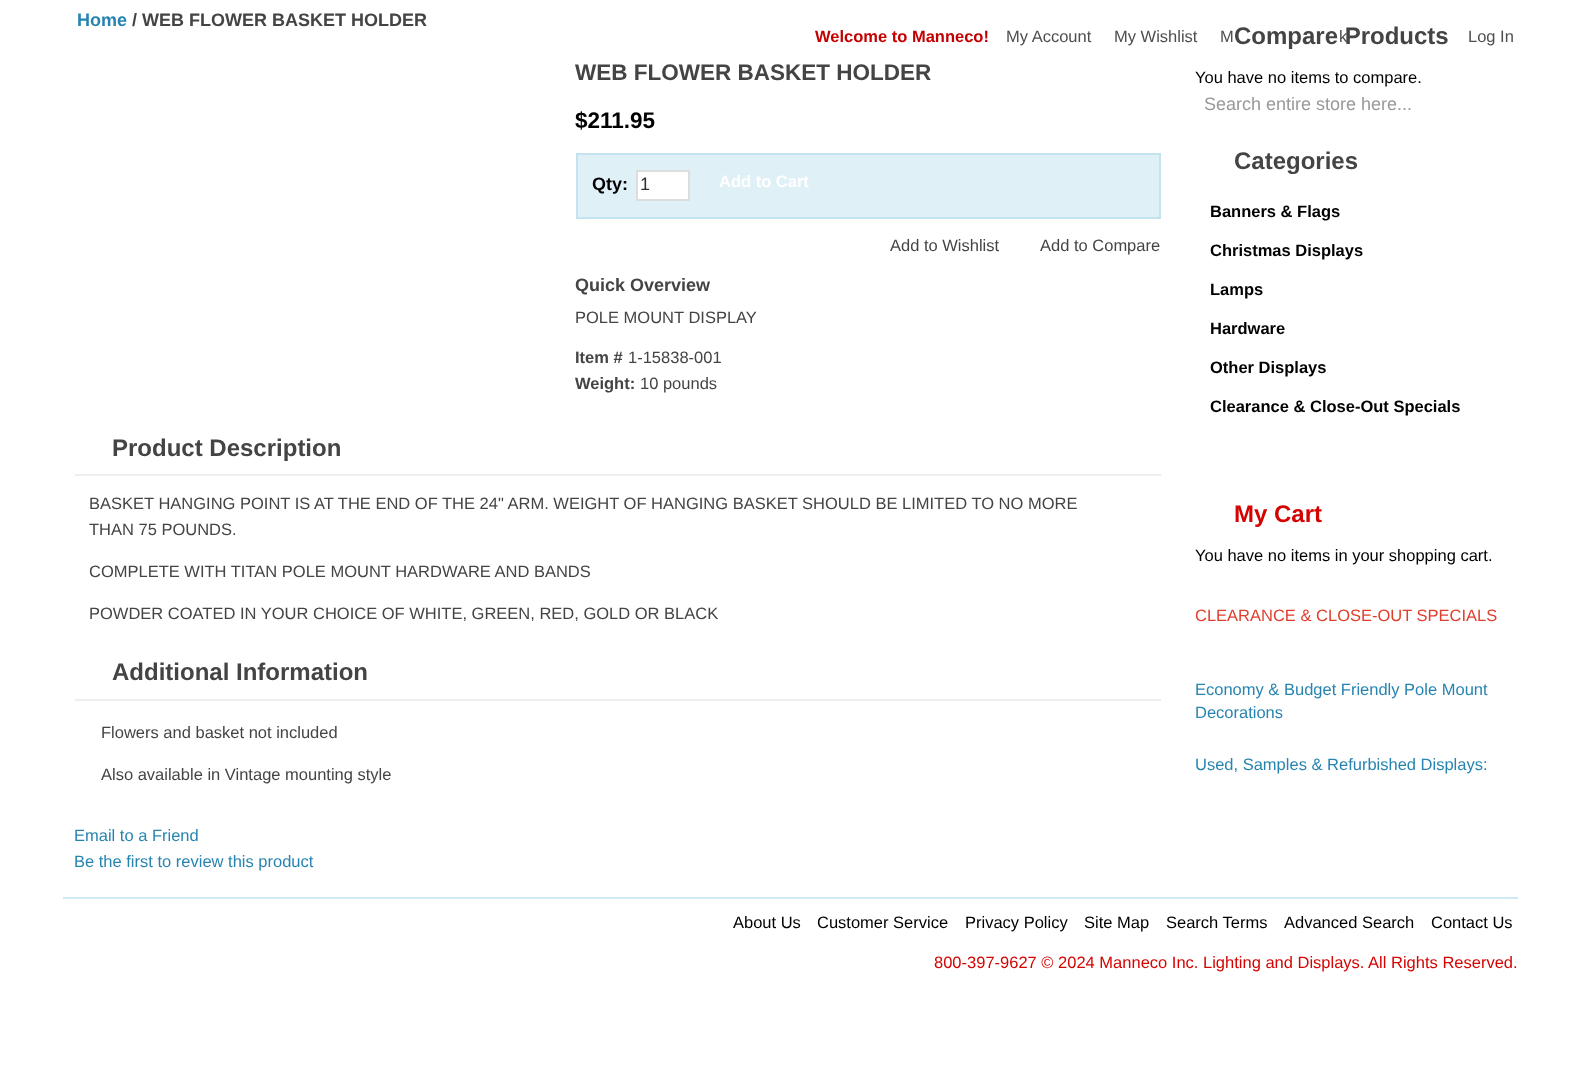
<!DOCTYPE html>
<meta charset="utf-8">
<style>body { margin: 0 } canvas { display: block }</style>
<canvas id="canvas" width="1579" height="1080"></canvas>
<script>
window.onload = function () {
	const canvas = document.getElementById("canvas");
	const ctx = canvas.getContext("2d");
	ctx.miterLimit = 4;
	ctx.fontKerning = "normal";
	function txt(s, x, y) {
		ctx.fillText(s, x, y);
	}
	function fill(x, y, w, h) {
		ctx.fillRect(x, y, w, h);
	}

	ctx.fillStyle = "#FFFFFF";
	fill(0, 0, 1579, 1080);
	ctx.fillStyle = "#E0F0F7";
	ctx.beginPath();
	ctx.rect(577, 154, 583, 64);
	ctx.fill();
	ctx.strokeStyle = "#C4E3F0";
	ctx.lineWidth = 2;
	ctx.stroke();
	ctx.fillStyle = "#FFFFFF";
	ctx.beginPath();
	ctx.rect(637, 171, 52, 29);
	ctx.fill();
	ctx.strokeStyle = "#DDDDDD";
	ctx.stroke();
	ctx.fillStyle = "#EEEEEE";
	fill(75, 474, 1086, 2);
	fill(75, 699, 1086, 2);
	ctx.fillStyle = "#D1EAF7";
	fill(63, 897, 1455, 2);
	ctx.font = "bold 18px Liberation Sans";
	ctx.fillStyle = "#2784B0";
	txt("Home", 77, 26);
	ctx.fillStyle = "#444444";
	txt("/ WEB FLOWER BASKET HOLDER", 132, 26);
	ctx.font = "bold 22.5px Liberation Sans";
	txt("WEB FLOWER BASKET HOLDER", 575, 80);
	ctx.fillStyle = "#000000";
	txt("$211.95", 575, 128);
	ctx.font = "bold 18px Liberation Sans";
	txt("Qty:", 592, 190);
	ctx.font = "18px Liberation Sans";
	ctx.fillStyle = "#2F2F2F";
	txt("1", 640, 190);
	ctx.font = "bold 16.5px Liberation Sans";
	ctx.fillStyle = "#FFFFFF";
	txt("Add to Cart", 719, 187);
	ctx.font = "16.5px Liberation Sans";
	ctx.fillStyle = "#444444";
	txt("Add to Wishlist", 890, 251);
	txt("Add to Compare", 1040, 251);
	ctx.font = "bold 18px Liberation Sans";
	txt("Quick Overview", 575, 291);
	ctx.font = "16.5px Liberation Sans";
	txt("POLE MOUNT DISPLAY", 575, 323);
	ctx.font = "bold 16.5px Liberation Sans";
	txt("Item #", 575, 363);
	ctx.font = "16.5px Liberation Sans";
	txt("1-15838-001", 628, 363);
	ctx.font = "bold 16.5px Liberation Sans";
	txt("Weight:", 575, 389);
	ctx.font = "16.5px Liberation Sans";
	txt("10 pounds", 640, 389);
	ctx.font = "bold 24px Liberation Sans";
	txt("Product Description", 112, 456);
	ctx.font = "16.5px Liberation Sans";
	txt("BASKET HANGING POINT IS AT THE END OF THE 24\" ARM. WEIGHT OF HANGING BASKET SHOULD BE LIMITED TO NO MORE", 89, 509);
	txt("THAN 75 POUNDS.", 89, 535);
	txt("COMPLETE WITH TITAN POLE MOUNT HARDWARE AND BANDS", 89, 577);
	txt("POWDER COATED IN YOUR CHOICE OF WHITE, GREEN, RED, GOLD OR BLACK", 89, 619);
	ctx.font = "bold 24px Liberation Sans";
	txt("Additional Information", 112, 680);
	ctx.font = "16.5px Liberation Sans";
	txt("Flowers and basket not included", 101, 738);
	txt("Also available in Vintage mounting style", 101, 780);
	ctx.fillStyle = "#2784B0";
	txt("Email to a Friend", 74, 841);
	txt("Be the first to review this product", 74, 867);
	ctx.font = "bold 24px Liberation Sans";
	ctx.fillStyle = "#444444";
	txt("Compare Products", 1234, 44);
	ctx.font = "16.5px Liberation Sans";
	ctx.fillStyle = "#000000";
	txt("You have no items to compare.", 1195, 83);
	ctx.font = "bold 24px Liberation Sans";
	ctx.fillStyle = "#444444";
	txt("Categories", 1234, 169);
	ctx.font = "bold 16.5px Liberation Sans";
	ctx.fillStyle = "#000000";
	txt("Banners & Flags", 1210, 217);
	txt("Christmas Displays", 1210, 256);
	txt("Lamps", 1210, 295);
	txt("Hardware", 1210, 334);
	txt("Other Displays", 1210, 373);
	txt("Clearance & Close-Out Specials", 1210, 412);
	ctx.font = "bold 24px Liberation Sans";
	ctx.fillStyle = "#D40402";
	txt("My Cart", 1234, 522);
	ctx.font = "16.5px Liberation Sans";
	ctx.fillStyle = "#000000";
	txt("You have no items in your shopping cart.", 1195, 561);
	ctx.fillStyle = "#E03E2D";
	txt("CLEARANCE & CLOSE-OUT SPECIALS", 1195, 621);
	ctx.fillStyle = "#2784B0";
	txt("Economy & Budget Friendly Pole Mount", 1195, 695);
	txt("Decorations", 1195, 718);
	txt("Used, Samples & Refurbished Displays:", 1195, 770);
	ctx.font = "bold 16.5px Liberation Sans";
	ctx.fillStyle = "#C40000";
	txt("Welcome to Manneco!", 815, 42);
	ctx.font = "16.5px Liberation Sans";
	ctx.fillStyle = "#4E4E4E";
	txt("My Account", 1006, 42);
	txt("My Wishlist", 1114, 42);
	txt("M", 1220, 42);
	txt("k", 1339, 42);
	txt("Log In", 1468, 42);
	ctx.font = "18px Liberation Sans";
	ctx.fillStyle = "#999999";
	txt("Search entire store here...", 1204, 110);
	ctx.font = "16.5px Liberation Sans";
	ctx.fillStyle = "#000000";
	txt("About Us", 733, 928);
	txt("Customer Service", 817, 928);
	txt("Privacy Policy", 965, 928);
	txt("Site Map", 1084, 928);
	txt("Search Terms", 1166, 928);
	txt("Advanced Search", 1284, 928);
	txt("Contact Us", 1431, 928);
	ctx.fillStyle = "#D40402";
	txt("800-397-9627 © 2024 Manneco Inc. Lighting and Displays. All Rights Reserved.", 934, 968);
};
</script>
